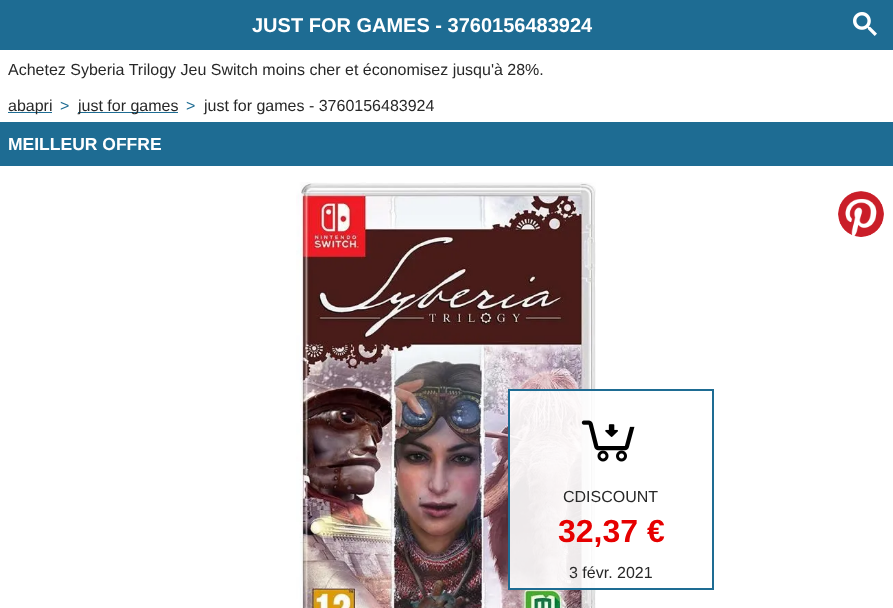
<!DOCTYPE html>
<meta charset="utf-8">
<style>body { margin: 0 } canvas { display: block }</style>
<canvas id="canvas" width="893" height="608"></canvas>
<img id="img1" src="img_01.png" hidden>
<img id="img2" src="img_02.png" hidden>
<img id="img3" src="img_03.png" hidden>
<img id="img4" src="img_04.png" hidden>
<script>
window.onload = function () {
	const canvas = document.getElementById("canvas");
	const ctx = canvas.getContext("2d");
	ctx.miterLimit = 4;
	ctx.fontKerning = "normal";
	function txt(s, x, y) {
		ctx.fillText(s, x, y);
	}
	function fill(x, y, w, h) {
		ctx.fillRect(x, y, w, h);
	}
	function img(id, x, y, w, h) {
		ctx.drawImage(document.getElementById(id), x, y, w, h);
	}

	ctx.fillStyle = "#FFFFFF";
	fill(0, 0, 893, 608);
	ctx.fillStyle = "#1E6C93";
	fill(0, 0, 893, 50);
	img("img1", 853, 12, 24, 24);
	fill(8, 112, 44, 1);
	fill(78, 112, 100, 1);
	fill(0, 122, 893, 44);
	img("img2", 296, 182, 300, 426);
	img("img3", 838, 191, 46, 46);
	ctx.beginPath();
	ctx.arc(861, 214, 23.5, 0, Math.PI * 2);
	ctx.strokeStyle = "#FFFFFF";
	ctx.stroke();
	ctx.fillStyle = "rgba(255, 255, 255, 0.9)";
	fill(510, 391, 86, 197);
	ctx.strokeStyle = "#1E6C93";
	ctx.lineWidth = 2;
	ctx.strokeRect(509, 390, 204, 199);
	img("img4", 581, 420, 54, 42);
	ctx.font = "bold 20px Liberation Sans";
	ctx.fillStyle = "#FFFFFF";
	txt("JUST FOR GAMES - 3760156483924", 252, 32);
	ctx.font = "16px Liberation Sans";
	ctx.fillStyle = "#282828";
	txt("Achetez Syberia Trilogy Jeu Switch moins cher et économisez jusqu'à 28%.", 8, 75);
	txt("abapri", 8, 111);
	ctx.fillStyle = "#1E6C93";
	txt(">", 60, 111);
	ctx.fillStyle = "#282828";
	txt("just for games", 78, 111);
	ctx.fillStyle = "#1E6C93";
	txt(">", 186, 111);
	ctx.fillStyle = "#282828";
	txt("just for games - 3760156483924", 204, 111);
	ctx.font = "bold 17.5px Liberation Sans";
	ctx.fillStyle = "#FFFFFF";
	txt("MEILLEUR OFFRE", 8, 150);
	ctx.font = "16px Liberation Sans";
	ctx.fillStyle = "#282828";
	txt("CDISCOUNT", 563, 502);
	ctx.font = "bold 32px Liberation Sans";
	ctx.fillStyle = "#E60000";
	txt("32,37 €", 558, 542);
	ctx.font = "16px Liberation Sans";
	ctx.fillStyle = "#282828";
	txt("3 févr. 2021", 569, 578);
};
</script>
